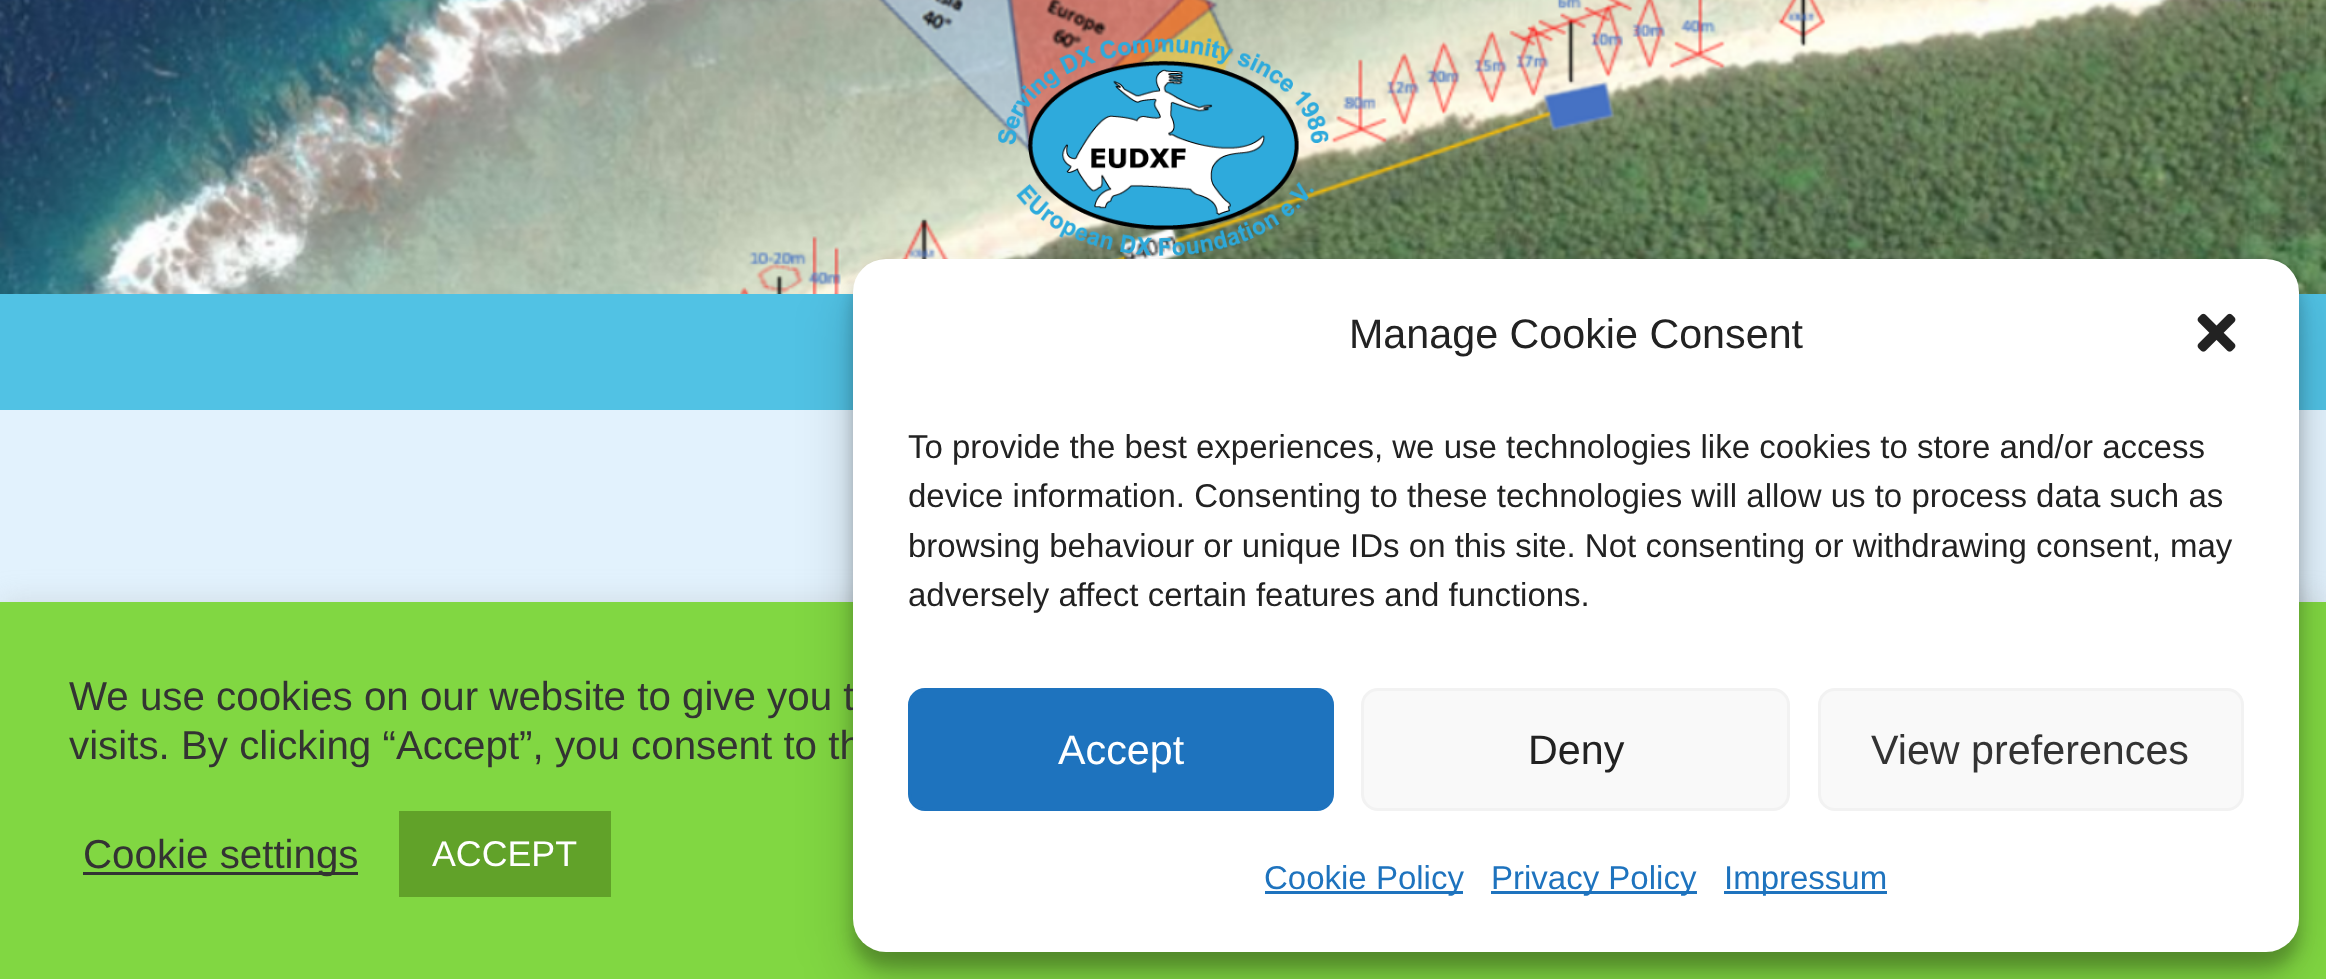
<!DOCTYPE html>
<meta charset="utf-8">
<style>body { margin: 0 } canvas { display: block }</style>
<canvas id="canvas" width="2326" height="979"></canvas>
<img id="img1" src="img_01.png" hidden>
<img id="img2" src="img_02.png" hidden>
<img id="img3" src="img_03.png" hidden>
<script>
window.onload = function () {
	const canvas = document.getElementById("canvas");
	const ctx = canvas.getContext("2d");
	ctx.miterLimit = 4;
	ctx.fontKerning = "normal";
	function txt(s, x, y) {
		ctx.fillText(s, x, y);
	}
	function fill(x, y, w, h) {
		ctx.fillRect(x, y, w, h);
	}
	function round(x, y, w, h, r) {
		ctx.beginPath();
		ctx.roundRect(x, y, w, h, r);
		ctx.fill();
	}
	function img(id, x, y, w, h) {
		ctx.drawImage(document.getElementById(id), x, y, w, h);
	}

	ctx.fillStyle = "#E2F2FD";
	fill(0, 0, 2326, 979);
	img("img1", 0, 0, 2326, 294);
	img("img2", 998, 38, 331, 218);
	ctx.fillStyle = "#51C2E4";
	fill(0, 294, 2326, 116);
	ctx.fillStyle = "rgba(172, 171, 171, 0.3)";
	ctx.filter = "blur(14px)";
	ctx.beginPath();
	ctx.rect(0, 600, 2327, 376);
	ctx.fill();
	ctx.filter = "none";
	ctx.fillStyle = "#81D742";
	fill(0, 602, 2326, 377);
	ctx.fillStyle = "#333333";
	fill(83, 872, 275, 3);
	ctx.fillStyle = "#61A229";
	fill(399, 811, 212, 86);
	ctx.fillStyle = "rgba(0, 0, 0, 0.23)";
	ctx.filter = "blur(8px)";
	ctx.beginPath();
	ctx.roundRect(853, 275, 1446, 693, 33);
	ctx.fill();
	ctx.filter = "none";
	ctx.fillStyle = "rgba(0, 0, 0, 0.19)";
	ctx.filter = "blur(27.5px)";
	ctx.beginPath();
	ctx.roundRect(853, 286, 1446, 693, 33);
	ctx.fill();
	ctx.filter = "none";
	ctx.font = "40.3px Liberation Sans";
	ctx.fillStyle = "#333333";
	txt("We use cookies on our website to give you t", 69, 710);
	txt("visits. By clicking “Accept”, you consent to th", 69, 759);
	txt("Cookie settings", 83, 868);
	ctx.font = "35.75px Liberation Sans";
	ctx.fillStyle = "#FFFFFF";
	txt("ACCEPT", 432, 866);
	round(853, 259, 1446, 693, 33);
	ctx.font = "41.25px Liberation Sans";
	ctx.fillStyle = "#222222";
	txt("Manage Cookie Consent", 1349, 348);
	img("img3", 2197, 313, 39, 39);
	ctx.font = "33px Liberation Sans";
	txt("To provide the best experiences, we use technologies like cookies to store and/or access", 908, 458);
	txt("device information. Consenting to these technologies will allow us to process data such as", 908, 507);
	txt("browsing behaviour or unique IDs on this site. Not consenting or withdrawing consent, may", 908, 557);
	txt("adversely affect certain features and functions.", 908, 606);
	ctx.fillStyle = "#1E73BE";
	ctx.beginPath();
	ctx.roundRect(909.5, 689.5, 423, 120, 15.5);
	ctx.fill();
	ctx.strokeStyle = "#1E73BE";
	ctx.lineWidth = 3;
	ctx.stroke();
	ctx.font = "41.25px Liberation Sans";
	ctx.fillStyle = "#FFFFFF";
	txt("Accept", 1058, 764);
	ctx.fillStyle = "#F9F9F9";
	ctx.beginPath();
	ctx.roundRect(1362.5, 689.5, 426, 120, 15.5);
	ctx.fill();
	ctx.strokeStyle = "#F2F2F2";
	ctx.stroke();
	ctx.fillStyle = "#222222";
	txt("Deny", 1528, 764);
	ctx.fillStyle = "#F9F9F9";
	ctx.beginPath();
	ctx.roundRect(1819.5, 689.5, 423, 120, 15.5);
	ctx.fill();
	ctx.stroke();
	ctx.fillStyle = "#333333";
	txt("View preferences", 1871, 764);
	ctx.fillStyle = "#1E73BE";
	fill(1265, 891, 198, 3);
	ctx.font = "33px Liberation Sans";
	txt("Cookie Policy", 1264, 889);
	fill(1491, 891, 206, 3);
	txt("Privacy Policy", 1491, 889);
	fill(1724, 891, 163, 3);
	txt("Impressum", 1724, 889);
};
</script>
